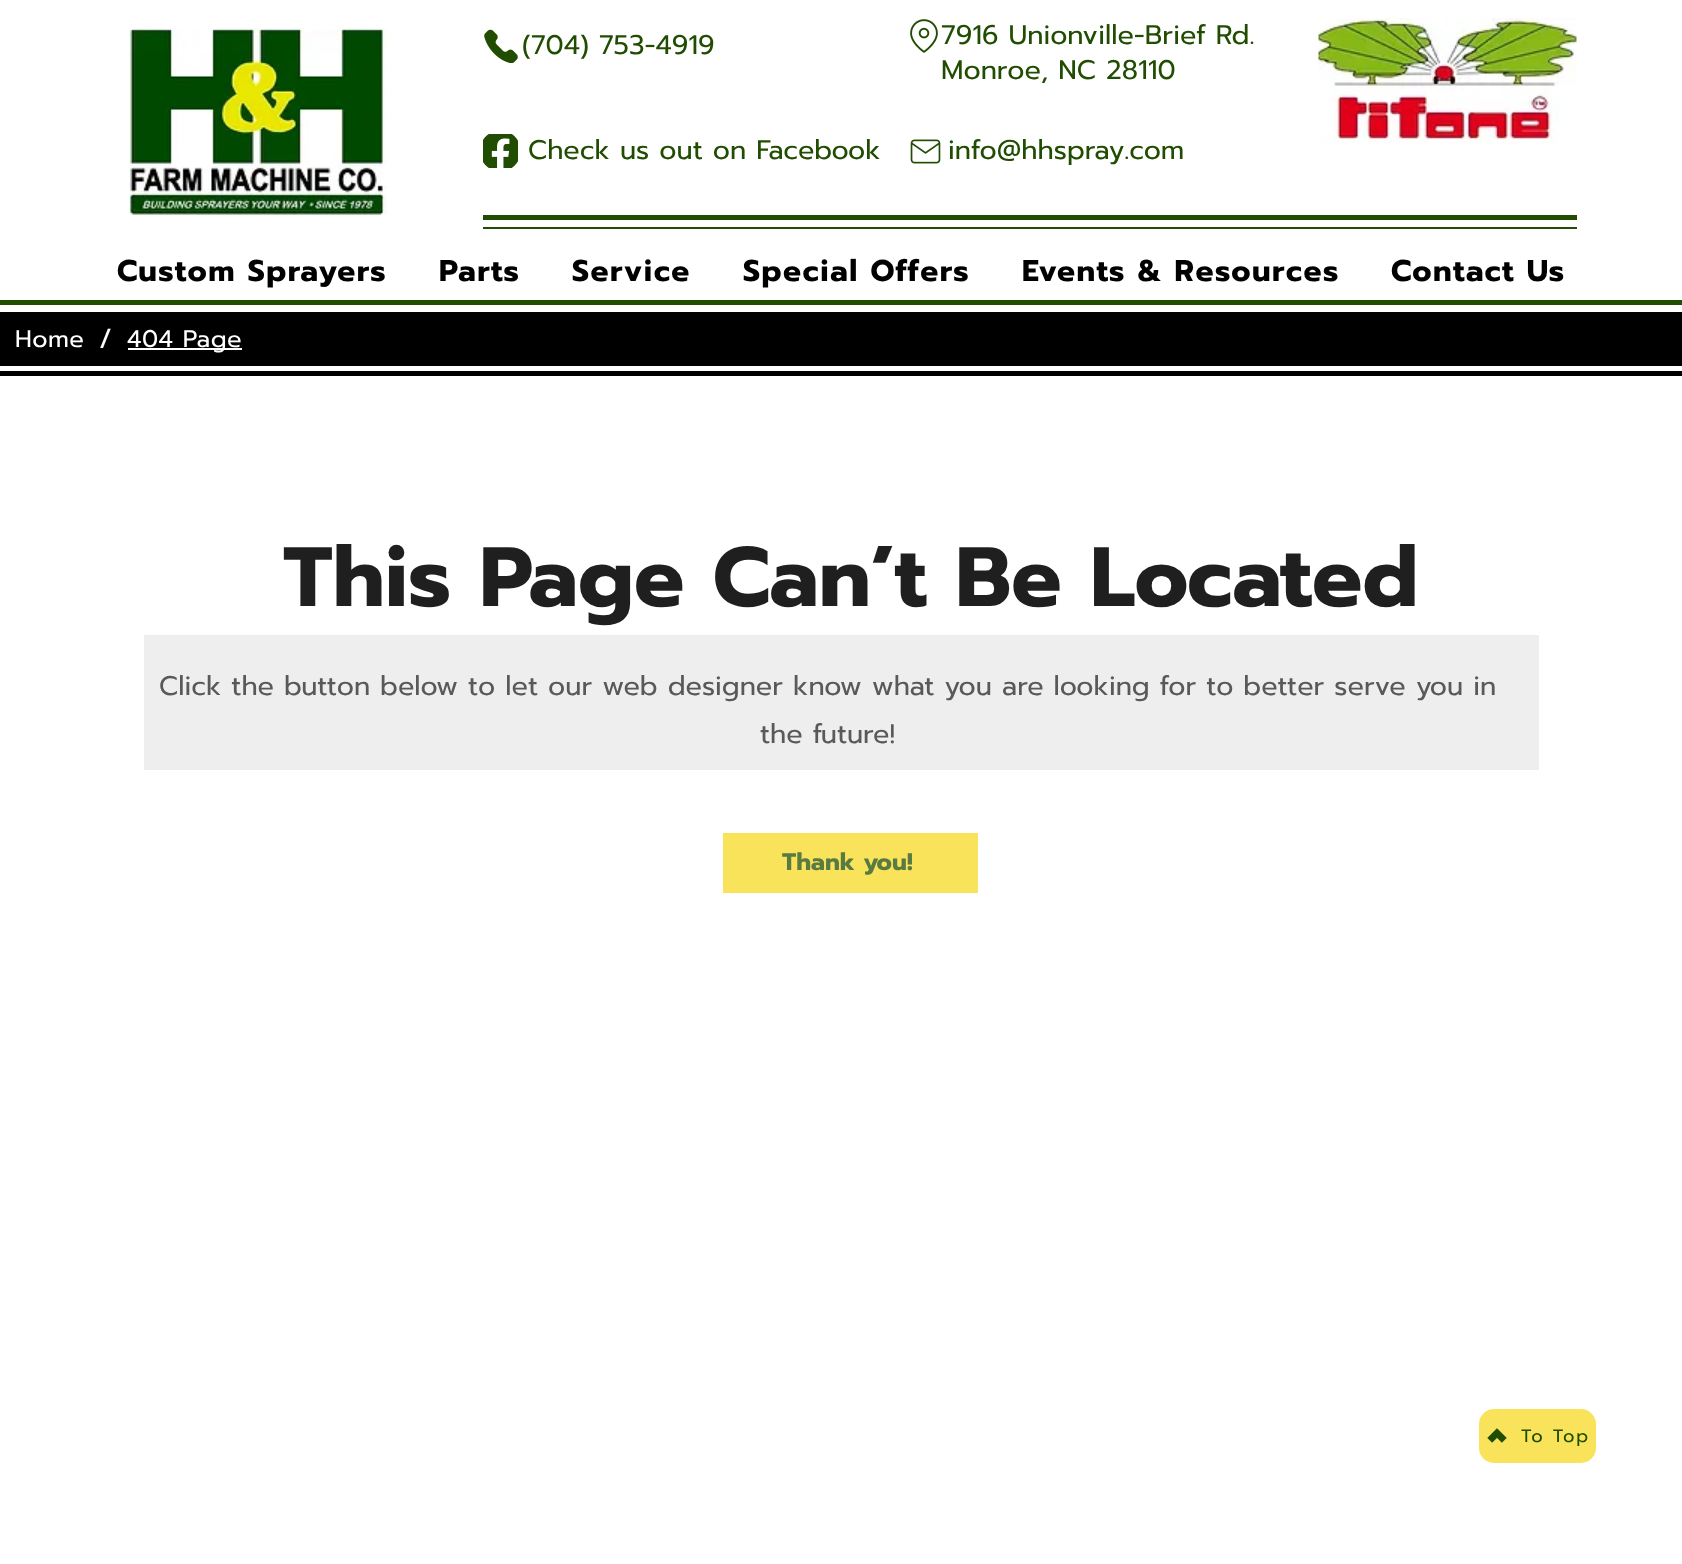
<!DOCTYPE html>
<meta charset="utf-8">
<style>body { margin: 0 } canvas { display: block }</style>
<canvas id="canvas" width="1682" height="1564"></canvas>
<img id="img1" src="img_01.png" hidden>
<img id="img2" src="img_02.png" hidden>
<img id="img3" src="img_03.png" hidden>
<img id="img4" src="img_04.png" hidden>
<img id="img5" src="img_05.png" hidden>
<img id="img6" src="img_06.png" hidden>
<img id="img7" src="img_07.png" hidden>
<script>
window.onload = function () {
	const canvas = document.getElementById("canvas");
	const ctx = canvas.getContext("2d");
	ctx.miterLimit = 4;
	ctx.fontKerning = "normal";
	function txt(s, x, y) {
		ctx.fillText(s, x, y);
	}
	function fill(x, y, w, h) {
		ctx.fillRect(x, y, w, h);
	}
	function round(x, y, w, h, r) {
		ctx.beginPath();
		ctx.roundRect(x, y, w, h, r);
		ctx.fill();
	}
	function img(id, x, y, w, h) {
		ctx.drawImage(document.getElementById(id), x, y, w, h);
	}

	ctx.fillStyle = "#FFFFFF";
	fill(0, 0, 1682, 1564);
	img("img1", 129, 28, 258, 187);
	img("img2", 484, 29, 34, 34);
	img("img3", 910, 19, 28, 34);
	img("img4", 483, 134, 35, 34);
	img("img5", 910, 139, 31, 25);
	img("img6", 1318, 18, 259, 126);
	ctx.fillStyle = "#214D02";
	fill(483, 215, 1094, 5);
	fill(483, 227, 1094, 2);
	fill(0, 300, 1682, 5);
	ctx.fillStyle = "#000000";
	fill(0, 312, 1682, 54);
	ctx.fillStyle = "#FFFFFF";
	fill(128, 348, 114, 2);
	ctx.fillStyle = "#000000";
	fill(0, 371, 1682, 5);
	ctx.fillStyle = "#EEEEEE";
	fill(144, 635, 1395, 135);
	ctx.fillStyle = "#F9E35B";
	fill(723, 833, 255, 60);
	round(1479, 1409, 117, 54, 15);
	img("img7", 1487, 1428, 20, 15);
	ctx.font = "27px Prompt";
	ctx.fillStyle = "#214D02";
	txt("(704) 753-4919", 522, 54);
	txt("7916 Unionville-Brief Rd.", 941, 44);
	txt("Monroe, NC 28110", 941, 79);
	txt("Check us out on Facebook", 528, 159);
	txt("info@hhspray.com", 948, 159);
	ctx.letterSpacing = "1.5px";
	ctx.font = "bold 30px Prompt";
	ctx.fillStyle = "#000000";
	txt("Custom Sprayers", 117, 281);
	txt("Parts", 439, 281);
	txt("Service", 572, 281);
	txt("Special Offers", 743, 281);
	txt("Events & Resources", 1022, 281);
	txt("Contact Us", 1391, 281);
	ctx.letterSpacing = "0.5px";
	ctx.font = "24px Prompt";
	ctx.fillStyle = "#FFFFFF";
	txt("Home", 15, 347);
	ctx.letterSpacing = "0px";
	ctx.font = "27px Prompt";
	txt("/", 99, 348);
	ctx.letterSpacing = "0.5px";
	ctx.font = "24px Prompt";
	txt("404 Page", 127, 347);
	ctx.letterSpacing = "0px";
	ctx.font = "bold 84px Prompt";
	ctx.fillStyle = "#1F1F1F";
	txt("This Page Can’t Be Located", 283, 606);
	ctx.font = "27px Prompt";
	ctx.fillStyle = "#595959";
	txt("Click the button below to let our web designer know what you are looking for to better serve you in", 159, 695);
	txt("the future!", 760, 743);
	ctx.font = "bold 24px Prompt";
	ctx.fillStyle = "#597A41";
	txt("Thank you!", 782, 870);
	ctx.letterSpacing = "1.75px";
	ctx.font = "18px Prompt";
	ctx.fillStyle = "#214D02";
	txt("To Top", 1521, 1442);
};
</script>
